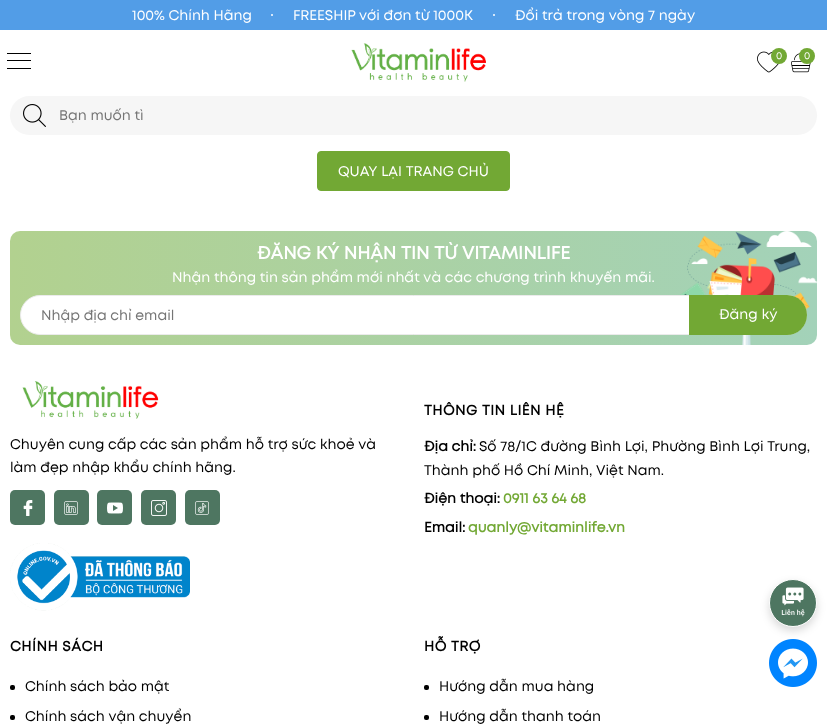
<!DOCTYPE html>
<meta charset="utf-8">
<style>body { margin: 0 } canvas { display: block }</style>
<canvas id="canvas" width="827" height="727"></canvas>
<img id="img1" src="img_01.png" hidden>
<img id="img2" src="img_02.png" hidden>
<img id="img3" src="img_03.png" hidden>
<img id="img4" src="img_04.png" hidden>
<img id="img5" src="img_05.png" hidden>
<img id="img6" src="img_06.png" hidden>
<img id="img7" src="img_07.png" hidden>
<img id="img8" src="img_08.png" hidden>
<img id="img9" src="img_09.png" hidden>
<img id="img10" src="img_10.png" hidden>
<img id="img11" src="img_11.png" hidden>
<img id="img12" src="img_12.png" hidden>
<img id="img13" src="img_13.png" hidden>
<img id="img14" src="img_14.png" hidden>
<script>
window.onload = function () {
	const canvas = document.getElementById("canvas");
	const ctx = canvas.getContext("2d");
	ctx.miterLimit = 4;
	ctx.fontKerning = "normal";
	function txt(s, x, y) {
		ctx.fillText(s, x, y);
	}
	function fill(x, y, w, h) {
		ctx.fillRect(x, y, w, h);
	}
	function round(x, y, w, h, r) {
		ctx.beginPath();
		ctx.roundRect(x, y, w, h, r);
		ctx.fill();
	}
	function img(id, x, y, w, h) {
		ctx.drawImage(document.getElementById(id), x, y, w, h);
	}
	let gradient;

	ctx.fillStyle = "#FFFFFF";
	fill(0, 0, 827, 727);
	ctx.fillStyle = "#529DE7";
	fill(0, 0, 827, 30);
	ctx.fillStyle = "#FFFFFF";
	ctx.beginPath();
	ctx.arc(272, 15, 1, 0, Math.PI * 2);
	ctx.fill();
	ctx.beginPath();
	ctx.arc(494, 15, 1, 0, Math.PI * 2);
	ctx.fill();
	ctx.fillStyle = "#000000";
	fill(7, 53, 24, 1);
	fill(7, 60, 24, 1);
	fill(7, 68, 24, 1);
	img("img1", 351, 43, 135, 39);
	img("img2", 757, 51, 23, 22);
	ctx.fillStyle = "#72A834";
	ctx.beginPath();
	ctx.arc(779, 56, 8, 0, Math.PI * 2);
	ctx.fill();
	img("img3", 791, 53, 20, 20);
	ctx.beginPath();
	ctx.arc(807, 56, 8, 0, Math.PI * 2);
	ctx.fill();
	ctx.fillStyle = "#F6F6F6";
	round(10, 96, 807, 39, 19.5);
	img("img4", 23, 104, 23, 23);
	ctx.fillStyle = "#72A834";
	ctx.beginPath();
	ctx.roundRect(317.5, 151.5, 192, 39, 3.5);
	ctx.fill();
	ctx.strokeStyle = "#72A834";
	ctx.stroke();
	gradient = ctx.createLinearGradient(10, 288, 817, 288);
	gradient.addColorStop(0, "#B2D18F");
	gradient.addColorStop(1, "#A3D2B9");
	ctx.fillStyle = gradient;
	round(10, 231, 807, 114, 10);
	img("img5", 679, 231, 138, 114);
	ctx.fillStyle = "#FFFFFF";
	ctx.beginPath();
	ctx.roundRect(20.5, 295.5, 786, 39, 19.5);
	ctx.fill();
	ctx.strokeStyle = "#EBEBEB";
	ctx.stroke();
	ctx.fillStyle = "#72A834";
	ctx.beginPath();
	ctx.roundRect(689, 295, 118, 40, [0, 20, 20, 0]);
	ctx.fill();
	img("img6", 22, 381, 137, 38);
	ctx.fillStyle = "#4E7661";
	round(10, 490, 35, 35, 5);
	img("img7", 23, 500, 10, 16);
	round(54, 490, 35, 35, 5);
	img("img8", 64, 501, 14, 14);
	round(97, 490, 35, 35, 5);
	img("img9", 107, 502, 16, 12);
	round(141, 490, 35, 35, 5);
	img("img10", 151, 500, 16, 16);
	round(185, 490, 35, 35, 5);
	img("img11", 195, 501, 14, 14);
	img("img12", 10, 543, 180, 68);
	ctx.fillStyle = "#000000";
	round(10, 685, 5, 5, 2);
	round(10, 715, 5, 5, 2);
	round(424, 685, 5, 5, 2);
	round(424, 715, 5, 5, 2);
	ctx.fillStyle = "rgba(0, 0, 0, 0.15)";
	ctx.filter = "blur(4px)";
	ctx.beginPath();
	ctx.roundRect(769, 583, 48, 48, 24);
	ctx.fill();
	ctx.filter = "none";
	ctx.fillStyle = "#4E7661";
	ctx.beginPath();
	ctx.arc(793, 603, 23.5, 0, Math.PI * 2);
	ctx.fill();
	ctx.strokeStyle = "#FFFFFF";
	ctx.stroke();
	img("img13", 781, 587, 24, 30);
	img("img14", 769, 639, 48, 48);
	ctx.font = "14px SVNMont";
	ctx.fillStyle = "#FFFFFF";
	txt("100% Chính Hãng", 132, 20);
	txt("FREESHIP với đơn từ 1000K", 293, 20);
	txt("Đổi trả trong vòng 7 ngày", 515, 20);
	ctx.font = "10px SVNMont";
	txt("0", 776, 59);
	txt("0", 804, 59);
	ctx.font = "14px SVNMont";
	ctx.fillStyle = "#757575";
	txt("Bạn muốn tì", 59, 120);
	ctx.fillStyle = "#FFFFFF";
	txt("QUAY LẠI TRANG CHỦ", 338, 176);
	ctx.font = "bold 18px SVNMont";
	txt("ĐĂNG KÝ NHẬN TIN TỪ VITAMINLIFE", 257, 259);
	ctx.font = "14px SVNMont";
	txt("Nhận thông tin sản phẩm mới nhất và các chương trình khuyến mãi.", 172, 282);
	ctx.fillStyle = "#757575";
	txt("Nhập địa chỉ email", 41, 320);
	ctx.fillStyle = "#FFFFFF";
	txt("Đăng ký", 719, 319);
	ctx.fillStyle = "#000000";
	txt("Chuyên cung cấp các sản phẩm hỗ trợ sức khoẻ và", 10, 449);
	txt("làm đẹp nhập khẩu chính hãng.", 10, 472);
	ctx.letterSpacing = "0.5px";
	ctx.font = "bold 14px SVNMont";
	txt("THÔNG TIN LIÊN HỆ", 424, 415);
	ctx.letterSpacing = "0px";
	txt("Địa chỉ:", 424, 451);
	ctx.font = "14px SVNMont";
	txt("Số 78/1C đường Bình Lợi, Phường Bình Lợi Trung,", 479, 451);
	txt("Thành phố Hồ Chí Minh, Việt Nam.", 424, 475);
	ctx.font = "bold 14px SVNMont";
	txt("Điện thoại:", 424, 503);
	ctx.fillStyle = "#72A834";
	txt("0911 63 64 68", 503, 503);
	ctx.fillStyle = "#000000";
	txt("Email:", 424, 532);
	ctx.fillStyle = "#72A834";
	txt("quanly@vitaminlife.vn", 468, 532);
	ctx.letterSpacing = "0.5px";
	ctx.fillStyle = "#000000";
	txt("CHÍNH SÁCH", 10, 651);
	ctx.letterSpacing = "0px";
	ctx.font = "14px SVNMont";
	txt("Chính sách bảo mật", 25, 691);
	txt("Chính sách vận chuyển", 25, 721);
	ctx.letterSpacing = "0.5px";
	ctx.font = "bold 14px SVNMont";
	txt("HỖ TRỢ", 424, 651);
	ctx.letterSpacing = "0px";
	ctx.font = "14px SVNMont";
	txt("Hướng dẫn mua hàng", 439, 691);
	txt("Hướng dẫn thanh toán", 439, 721);
};
</script>
